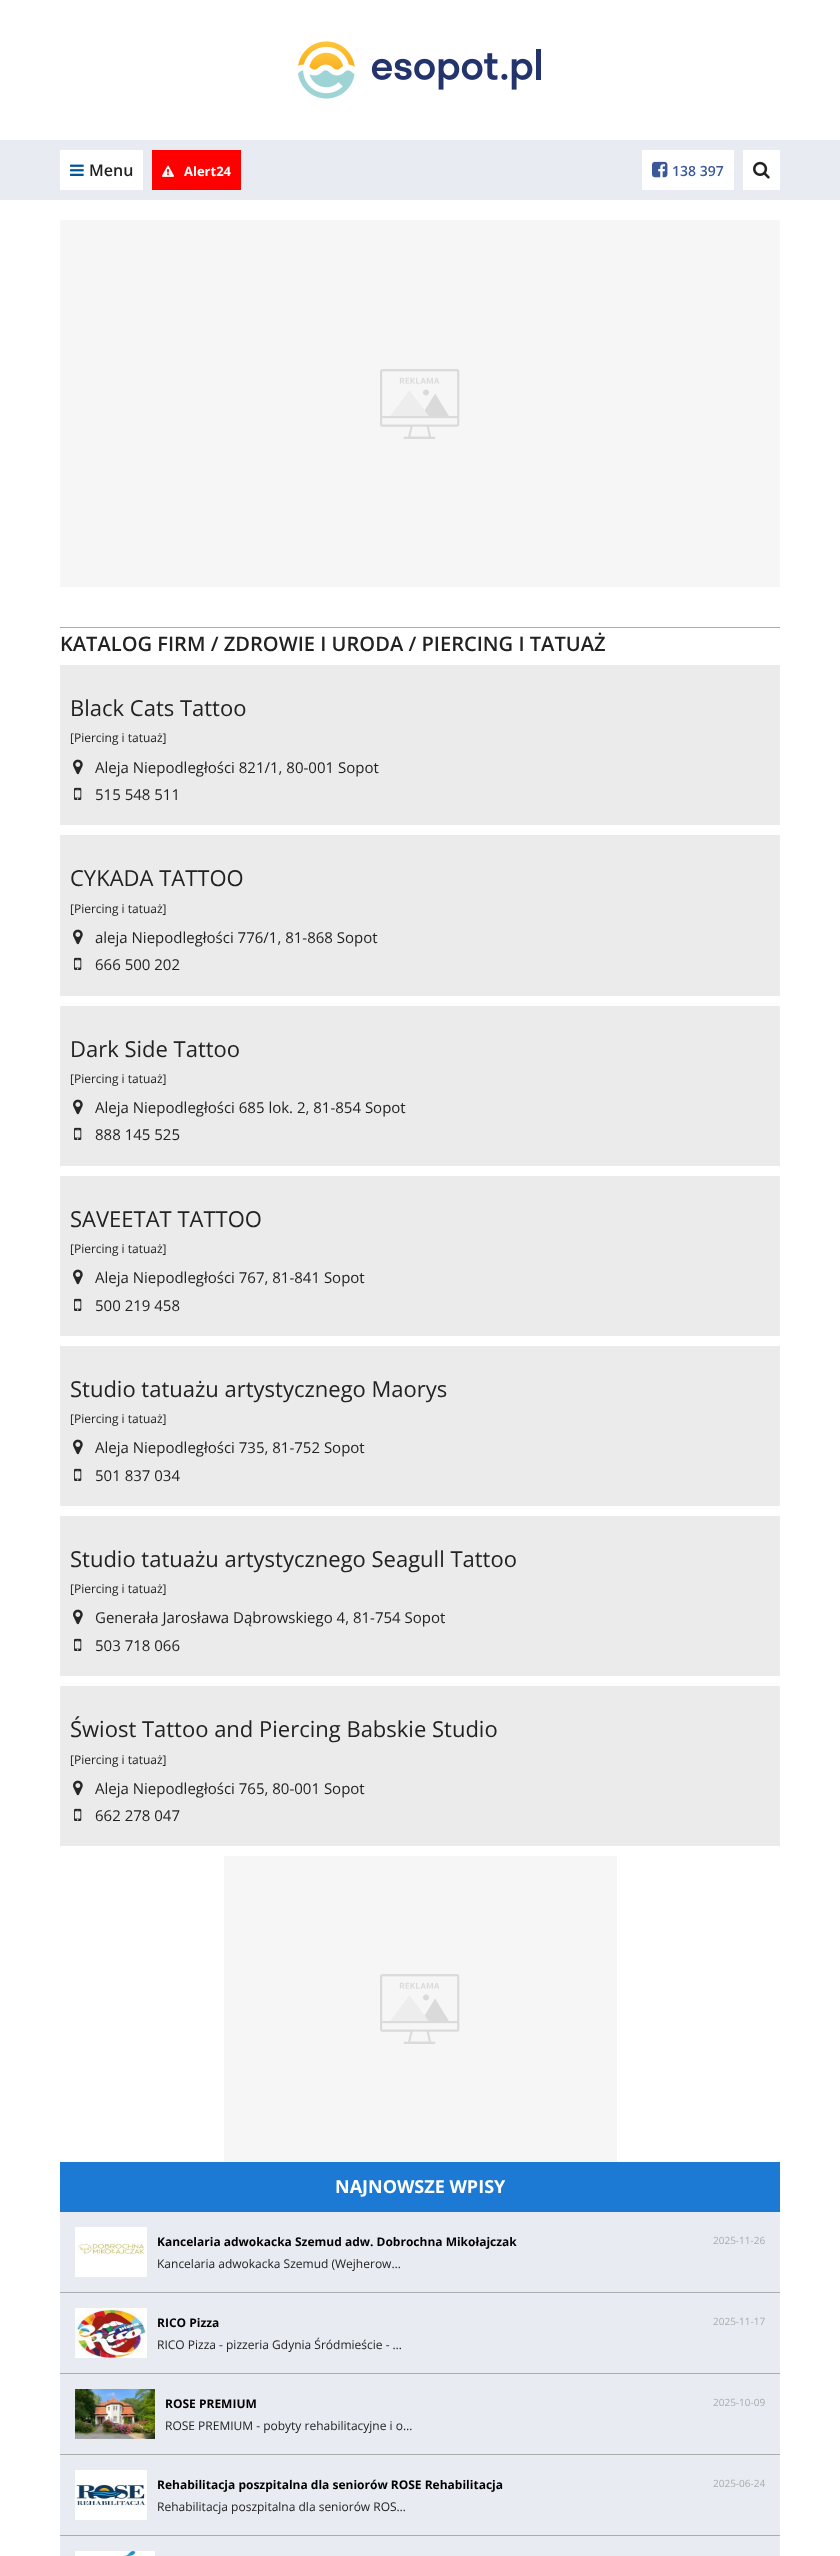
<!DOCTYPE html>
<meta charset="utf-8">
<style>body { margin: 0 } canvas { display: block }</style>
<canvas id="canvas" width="840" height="2556"></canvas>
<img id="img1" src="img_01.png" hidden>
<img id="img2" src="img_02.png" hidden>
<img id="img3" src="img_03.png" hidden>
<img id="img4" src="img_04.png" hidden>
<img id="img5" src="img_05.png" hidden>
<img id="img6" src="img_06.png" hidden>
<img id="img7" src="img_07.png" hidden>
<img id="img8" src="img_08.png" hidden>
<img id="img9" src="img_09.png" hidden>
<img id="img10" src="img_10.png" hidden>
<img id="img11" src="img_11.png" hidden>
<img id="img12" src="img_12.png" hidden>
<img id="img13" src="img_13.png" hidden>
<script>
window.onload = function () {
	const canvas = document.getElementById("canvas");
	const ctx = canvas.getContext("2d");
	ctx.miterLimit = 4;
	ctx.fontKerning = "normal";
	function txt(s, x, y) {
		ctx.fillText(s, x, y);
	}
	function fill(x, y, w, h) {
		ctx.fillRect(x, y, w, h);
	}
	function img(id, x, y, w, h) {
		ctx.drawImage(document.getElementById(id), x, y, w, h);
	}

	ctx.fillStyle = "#FFFFFF";
	fill(0, 0, 840, 2556);
	img("img1", 298, 41, 243, 58);
	ctx.fillStyle = "#E9EBF2";
	fill(0, 140, 840, 60);
	ctx.fillStyle = "#FFFFFF";
	fill(60, 150, 83, 40);
	img("img2", 70, 164, 14, 12);
	ctx.fillStyle = "#FF0000";
	fill(152, 150, 89, 40);
	img("img3", 162, 165, 12, 12);
	ctx.fillStyle = "#FFFFFF";
	fill(642, 150, 92, 40);
	img("img4", 652, 161, 16, 17);
	fill(743, 150, 37, 40);
	img("img5", 753, 161, 17, 18);
	ctx.fillStyle = "#F6F6F6";
	fill(60, 220, 720, 367);
	img("img6", 380, 369, 80, 70);
	ctx.fillStyle = "#A7ADB4";
	fill(60, 627, 720, 1);
	ctx.fillStyle = "#EBEBEB";
	fill(60, 665, 720, 160);
	img("img7", 73, 759, 10, 16);
	img("img8", 74, 787, 8, 13);
	fill(60, 835, 720, 161);
	img("img7", 73, 929, 10, 16);
	img("img8", 74, 957, 8, 13);
	fill(60, 1006, 720, 160);
	img("img7", 73, 1099, 10, 16);
	img("img8", 74, 1127, 8, 13);
	fill(60, 1176, 720, 160);
	img("img7", 73, 1269, 10, 16);
	img("img8", 74, 1298, 8, 13);
	fill(60, 1346, 720, 160);
	img("img7", 73, 1439, 10, 16);
	img("img8", 74, 1468, 8, 13);
	fill(60, 1516, 720, 160);
	img("img7", 73, 1609, 10, 16);
	img("img8", 74, 1638, 8, 13);
	fill(60, 1686, 720, 160);
	img("img7", 73, 1780, 10, 16);
	img("img8", 74, 1808, 8, 13);
	ctx.fillStyle = "#F6F6F6";
	fill(224, 1856, 393, 306);
	img("img6", 380, 1974, 80, 70);
	ctx.fillStyle = "#1C7AD5";
	fill(60, 2162, 720, 50);
	ctx.fillStyle = "#E9EBF2";
	fill(60, 2212, 720, 344);
	ctx.fillStyle = "#ACACAC";
	fill(60, 2292, 720, 1);
	img("img9", 75, 2227, 72, 50);
	fill(60, 2373, 720, 1);
	img("img10", 75, 2308, 72, 50);
	fill(60, 2454, 720, 1);
	img("img11", 75, 2389, 80, 50);
	fill(60, 2535, 720, 1);
	img("img12", 75, 2470, 72, 50);
	img("img13", 75, 2551, 80, 5);
	ctx.font = "600 16px Open Sans";
	ctx.fillStyle = "#222222";
	txt("Menu", 89, 176);
	ctx.font = "bold 13px Open Sans";
	ctx.fillStyle = "#FFFFFF";
	txt("Alert24", 184, 176);
	ctx.font = "600 14px Open Sans";
	ctx.fillStyle = "#3B5998";
	txt("138 397", 672, 176);
	ctx.font = "600 20.1px Open Sans";
	ctx.fillStyle = "#222222";
	txt("KATALOG FIRM / ZDROWIE I URODA / PIERCING I TATUAŻ", 60, 651);
	ctx.font = "22px Open Sans";
	txt("Black Cats Tattoo", 70, 716);
	ctx.font = "12px Open Sans";
	txt("[Piercing i tatuaż]", 70, 742);
	ctx.font = "15px Open Sans";
	txt("Aleja Niepodległości 821/1, 80-001 Sopot", 95, 773);
	txt("515 548 511", 95, 800);
	ctx.font = "22px Open Sans";
	txt("CYKADA TATTOO", 70, 886);
	ctx.font = "12px Open Sans";
	txt("[Piercing i tatuaż]", 70, 913);
	ctx.font = "15px Open Sans";
	txt("aleja Niepodległości 776/1, 81-868 Sopot", 95, 943);
	txt("666 500 202", 95, 970);
	ctx.font = "22px Open Sans";
	txt("Dark Side Tattoo", 70, 1057);
	ctx.font = "12px Open Sans";
	txt("[Piercing i tatuaż]", 70, 1083);
	ctx.font = "15px Open Sans";
	txt("Aleja Niepodległości 685 lok. 2, 81-854 Sopot", 95, 1113);
	txt("888 145 525", 95, 1140);
	ctx.font = "22px Open Sans";
	txt("SAVEETAT TATTOO", 70, 1227);
	ctx.font = "12px Open Sans";
	txt("[Piercing i tatuaż]", 70, 1253);
	ctx.font = "15px Open Sans";
	txt("Aleja Niepodległości 767, 81-841 Sopot", 95, 1283);
	txt("500 219 458", 95, 1311);
	ctx.font = "22px Open Sans";
	txt("Studio tatuażu artystycznego Maorys", 70, 1397);
	ctx.font = "12px Open Sans";
	txt("[Piercing i tatuaż]", 70, 1423);
	ctx.font = "15px Open Sans";
	txt("Aleja Niepodległości 735, 81-752 Sopot", 95, 1453);
	txt("501 837 034", 95, 1481);
	ctx.font = "22px Open Sans";
	txt("Studio tatuażu artystycznego Seagull Tattoo", 70, 1567);
	ctx.font = "12px Open Sans";
	txt("[Piercing i tatuaż]", 70, 1593);
	ctx.font = "15px Open Sans";
	txt("Generała Jarosława Dąbrowskiego 4, 81-754 Sopot", 95, 1623);
	txt("503 718 066", 95, 1651);
	ctx.font = "22px Open Sans";
	txt("Świost Tattoo and Piercing Babskie Studio", 70, 1737);
	ctx.font = "12px Open Sans";
	txt("[Piercing i tatuaż]", 70, 1764);
	ctx.font = "15px Open Sans";
	txt("Aleja Niepodległości 765, 80-001 Sopot", 95, 1794);
	txt("662 278 047", 95, 1821);
	ctx.font = "bold 18px Open Sans";
	ctx.fillStyle = "#FFFFFF";
	txt("NAJNOWSZE WPISY", 335, 2193);
	ctx.font = "bold 12px Open Sans";
	ctx.fillStyle = "#000000";
	txt("Kancelaria adwokacka Szemud adw. Dobrochna Mikołajczak", 157, 2246);
	ctx.font = "10px Open Sans";
	ctx.fillStyle = "#ACACAC";
	txt("2025-11-26", 713, 2244);
	ctx.font = "12px Open Sans";
	ctx.fillStyle = "#222222";
	txt("Kancelaria adwokacka Szemud (Wejherow…", 157, 2268);
	ctx.font = "bold 12px Open Sans";
	ctx.fillStyle = "#000000";
	txt("RICO Pizza", 157, 2327);
	ctx.font = "10px Open Sans";
	ctx.fillStyle = "#ACACAC";
	txt("2025-11-17", 713, 2325);
	ctx.font = "12px Open Sans";
	ctx.fillStyle = "#222222";
	txt("RICO Pizza - pizzeria Gdynia Śródmieście - …", 157, 2349);
	ctx.font = "bold 12px Open Sans";
	ctx.fillStyle = "#000000";
	txt("ROSE PREMIUM", 165, 2408);
	ctx.font = "10px Open Sans";
	ctx.fillStyle = "#ACACAC";
	txt("2025-10-09", 713, 2406);
	ctx.font = "12px Open Sans";
	ctx.fillStyle = "#222222";
	txt("ROSE PREMIUM - pobyty rehabilitacyjne i o…", 165, 2430);
	ctx.font = "bold 12px Open Sans";
	ctx.fillStyle = "#000000";
	txt("Rehabilitacja poszpitalna dla seniorów ROSE Rehabilitacja", 157, 2489);
	ctx.font = "10px Open Sans";
	ctx.fillStyle = "#ACACAC";
	txt("2025-06-24", 713, 2487);
	ctx.font = "12px Open Sans";
	ctx.fillStyle = "#222222";
	txt("Rehabilitacja poszpitalna dla seniorów ROS…", 157, 2511);
};
</script>
